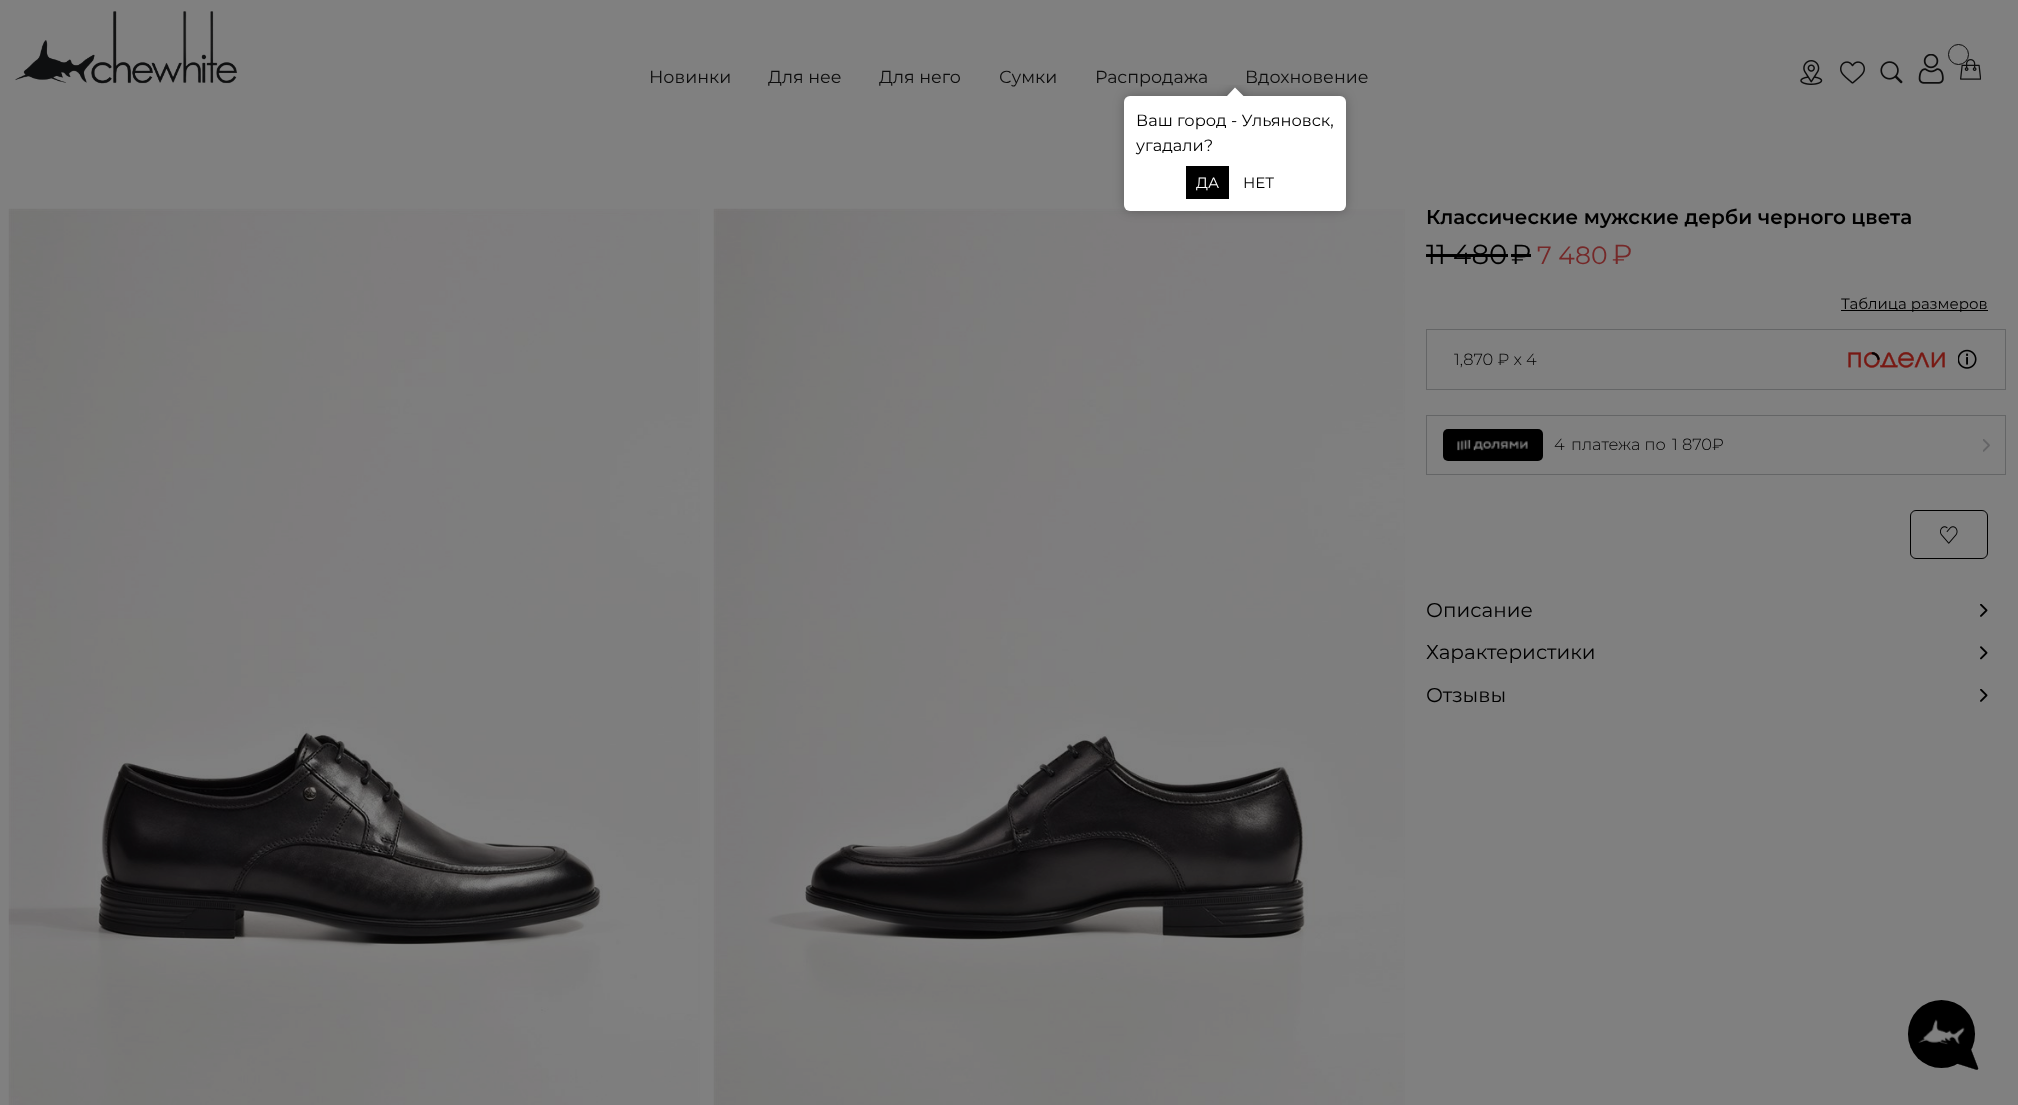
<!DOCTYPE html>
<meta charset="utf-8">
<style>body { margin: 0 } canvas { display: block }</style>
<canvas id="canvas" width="2018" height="1105"></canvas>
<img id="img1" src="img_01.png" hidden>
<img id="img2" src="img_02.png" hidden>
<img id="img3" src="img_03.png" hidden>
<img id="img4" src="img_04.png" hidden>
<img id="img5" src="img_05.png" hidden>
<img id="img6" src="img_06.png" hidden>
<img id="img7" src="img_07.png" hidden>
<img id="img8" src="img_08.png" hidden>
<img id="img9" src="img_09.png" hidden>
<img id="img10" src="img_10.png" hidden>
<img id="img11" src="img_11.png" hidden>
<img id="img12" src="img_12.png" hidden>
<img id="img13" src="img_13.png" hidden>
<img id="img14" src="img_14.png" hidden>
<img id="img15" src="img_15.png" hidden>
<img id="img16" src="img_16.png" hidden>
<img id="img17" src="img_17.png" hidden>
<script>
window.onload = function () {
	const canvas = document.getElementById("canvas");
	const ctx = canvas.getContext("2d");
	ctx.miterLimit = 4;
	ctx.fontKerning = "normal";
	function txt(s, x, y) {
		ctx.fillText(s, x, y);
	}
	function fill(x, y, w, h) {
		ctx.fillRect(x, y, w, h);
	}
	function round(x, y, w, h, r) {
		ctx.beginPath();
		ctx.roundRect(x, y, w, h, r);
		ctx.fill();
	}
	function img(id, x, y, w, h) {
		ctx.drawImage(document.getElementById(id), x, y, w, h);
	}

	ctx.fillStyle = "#808080";
	fill(0, 0, 2018, 1105);
	img("img1", 15, 11, 223, 73);
	img("img2", 1800, 60, 23, 25);
	img("img3", 1840, 61, 25, 23);
	img("img4", 1880, 61, 23, 23);
	img("img5", 1918, 54, 26, 30);
	img("img6", 1960, 59, 21, 21);
	ctx.beginPath();
	ctx.arc(1958.5, 54.5, 10, 0, Math.PI * 2);
	ctx.strokeStyle = "#0D0D0D";
	ctx.stroke();
	img("img7", 8, 208, 692, 897);
	img("img8", 713, 208, 692, 897);
	ctx.fillStyle = "#000000";
	fill(1426, 254, 82, 3);
	fill(1511, 254, 20, 3);
	fill(1841, 310, 147, 1);
	ctx.strokeStyle = "#646566";
	ctx.strokeRect(1426.5, 329.5, 579, 60);
	img("img9", 1848, 352, 97, 16);
	img("img10", 1958, 349, 19, 20);
	ctx.strokeRect(1426.5, 415.5, 579, 59);
	round(1443, 429, 100, 32, 5);
	img("img11", 1457, 439, 71, 12);
	img("img12", 1983, 439, 7, 13);
	ctx.beginPath();
	ctx.roundRect(1910.5, 510.5, 77, 48, 5.5);
	ctx.strokeStyle = "#000000";
	ctx.stroke();
	img("img13", 1940, 526, 18, 18);
	img("img14", 1980, 604, 8, 13);
	img("img15", 1980, 646, 8, 14);
	img("img14", 1980, 689, 8, 13);
	ctx.fillStyle = "rgba(0, 0, 0, 0.25)";
	ctx.filter = "blur(5.5px)";
	ctx.beginPath();
	ctx.roundRect(1124, 96, 222, 115, 6);
	ctx.fill();
	ctx.filter = "none";
	ctx.fillStyle = "#FFFFFF";
	round(1124, 96, 222, 115, 6);
	ctx.save();
	ctx.beginPath();
	ctx.rect(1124, 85, 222, 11);
	ctx.clip();
	ctx.fillStyle = "rgba(0, 0, 0, 0.25)";
	ctx.filter = "blur(5.5px)";
	ctx.beginPath();
	ctx.rect(1229, 90, 12, 13);
	ctx.fill();
	ctx.filter = "none";
	ctx.restore();
	ctx.save();
	ctx.beginPath();
	ctx.rect(1124, 85, 222, 11);
	ctx.clip();
	ctx.beginPath();
	ctx.moveTo(1235, 87.5);
	ctx.lineTo(1244, 96.5);
	ctx.lineTo(1235, 105);
	ctx.lineTo(1226.5, 96.5);
	ctx.closePath();
	ctx.fill();
	ctx.restore();
	ctx.fillStyle = "#000000";
	fill(1186, 166, 43, 33);
	round(1908, 1000, 67, 68, 33.5);
	img("img16", 1918, 1019, 47, 26);
	img("img17", 1957, 1049, 22, 21);
	ctx.font = "17.5px Montserrat";
	ctx.fillStyle = "#0D0D0D";
	txt("Новинки", 649, 83);
	txt("Для нее", 768, 83);
	txt("Для него", 879, 83);
	txt("Сумки", 999, 83);
	txt("Распродажа", 1095, 83);
	txt("Вдохновение", 1245, 83);
	ctx.font = "600 20px Montserrat";
	ctx.fillStyle = "#000000";
	txt("Классические мужские дерби черного цвета", 1426, 224);
	ctx.font = "27.5px Montserrat";
	txt("11 480", 1426, 264);
	txt("₽", 1511, 264);
	ctx.font = "25px Montserrat";
	ctx.fillStyle = "#752828";
	txt("7 480", 1537, 264);
	ctx.font = "27.5px Montserrat";
	txt("₽", 1612, 264);
	ctx.font = "15px Montserrat";
	ctx.fillStyle = "#000000";
	txt("Таблица размеров", 1841, 309);
	ctx.font = "300 16.25px Montserrat";
	txt("1,870 ₽ x 4", 1454, 365);
	txt("4", 1554, 450);
	txt("платежа по", 1571, 450);
	txt("1 870₽", 1672, 450);
	ctx.font = "20px Montserrat";
	txt("Описание", 1426, 617);
	txt("Характеристики", 1426, 659);
	txt("Отзывы", 1426, 702);
	ctx.font = "16.25px Montserrat";
	txt("Ваш город - Ульяновск,", 1136, 126);
	txt("угадали?", 1136, 151);
	ctx.font = "15px Montserrat";
	ctx.fillStyle = "#FFFFFF";
	txt("ДА", 1196, 188);
	ctx.fillStyle = "#000000";
	txt("НЕТ", 1243, 188);
};
</script>
